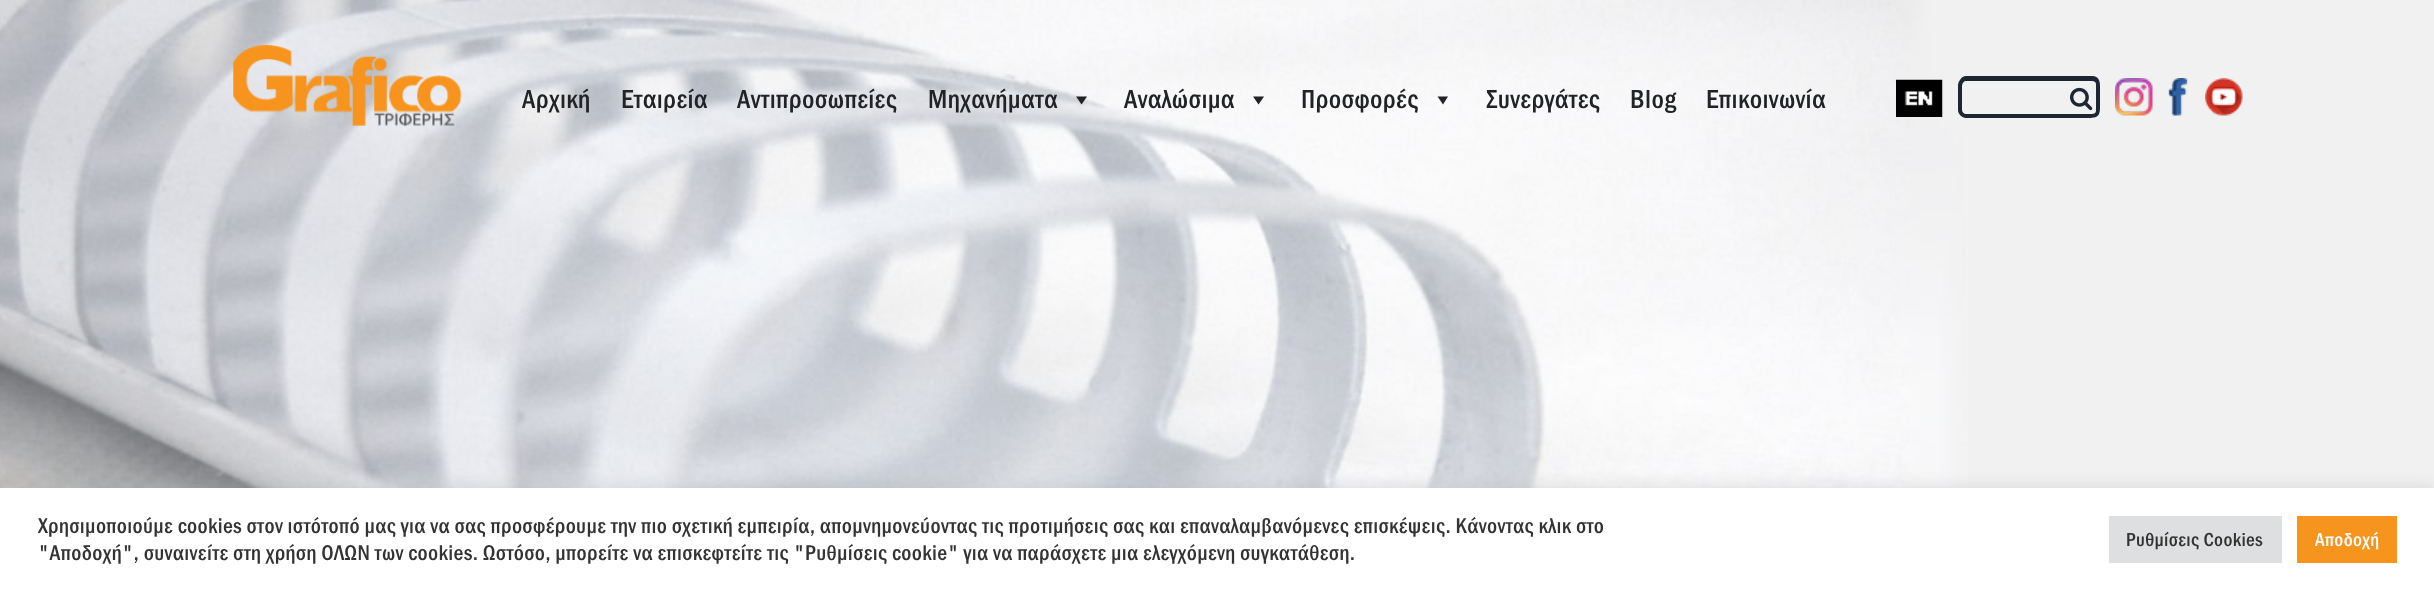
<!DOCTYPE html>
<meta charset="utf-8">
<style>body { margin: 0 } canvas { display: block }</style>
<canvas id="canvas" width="2434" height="591"></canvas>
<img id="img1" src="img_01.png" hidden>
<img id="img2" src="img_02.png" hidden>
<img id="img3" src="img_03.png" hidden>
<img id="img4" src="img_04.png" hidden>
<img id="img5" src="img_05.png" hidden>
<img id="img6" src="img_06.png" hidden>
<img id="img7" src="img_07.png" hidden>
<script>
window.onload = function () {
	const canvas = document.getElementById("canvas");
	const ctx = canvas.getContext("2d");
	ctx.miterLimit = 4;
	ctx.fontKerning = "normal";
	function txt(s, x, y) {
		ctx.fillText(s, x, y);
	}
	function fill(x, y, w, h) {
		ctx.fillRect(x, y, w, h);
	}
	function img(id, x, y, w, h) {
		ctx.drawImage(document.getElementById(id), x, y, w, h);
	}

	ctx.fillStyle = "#FFFFFF";
	fill(0, 0, 2434, 591);
	img("img1", 0, 0, 2434, 488);
	img("img2", 233, 45, 229, 81);
	ctx.fillStyle = "#212326";
	ctx.beginPath();
	ctx.moveTo(1087, 96.5);
	ctx.lineTo(1081.5, 104.5);
	ctx.lineTo(1076, 96.5);
	ctx.closePath();
	ctx.fill();
	ctx.beginPath();
	ctx.moveTo(1264, 96.5);
	ctx.lineTo(1258.5, 104.5);
	ctx.lineTo(1253, 96.5);
	ctx.closePath();
	ctx.fill();
	ctx.beginPath();
	ctx.moveTo(1448, 96.5);
	ctx.lineTo(1443, 104.5);
	ctx.lineTo(1437.5, 96.5);
	ctx.closePath();
	ctx.fill();
	img("img3", 1896, 79, 47, 38);
	ctx.fillStyle = "#1F2633";
	ctx.beginPath();
	ctx.moveTo(1966, 76);
	ctx.lineTo(2067, 76);
	ctx.lineTo(2067, 118);
	ctx.lineTo(1966, 118);
	ctx.bezierCurveTo(1962, 118, 1958, 114, 1958, 110);
	ctx.lineTo(1958, 86);
	ctx.bezierCurveTo(1958, 81, 1962, 76, 1966, 76);
	ctx.closePath();
	ctx.moveTo(1966, 81);
	ctx.lineTo(2067, 81);
	ctx.lineTo(2067, 114);
	ctx.lineTo(1966, 114);
	ctx.bezierCurveTo(1964, 114, 1962, 112, 1962, 110);
	ctx.lineTo(1962, 86);
	ctx.bezierCurveTo(1962, 83, 1964, 81, 1966, 81);
	ctx.closePath();
	ctx.fill("evenodd");
	ctx.beginPath();
	ctx.moveTo(2067, 76);
	ctx.lineTo(2067, 81);
	ctx.lineTo(2092, 81);
	ctx.bezierCurveTo(2094, 81, 2096, 82, 2096, 84);
	ctx.lineTo(2096, 111);
	ctx.bezierCurveTo(2096, 113, 2094, 114, 2092, 114);
	ctx.lineTo(2067, 114);
	ctx.lineTo(2067, 118);
	ctx.lineTo(2088, 118);
	ctx.bezierCurveTo(2101, 118, 2100, 114, 2100, 101);
	ctx.lineTo(2100, 88);
	ctx.bezierCurveTo(2100, 83, 2100, 76, 2092, 76);
	ctx.closePath();
	ctx.fill();
	img("img4", 2070, 87, 23, 24);
	img("img5", 2115, 78, 38, 38);
	img("img6", 2168, 78, 20, 38);
	img("img7", 2205, 78, 38, 38);
	ctx.fillStyle = "rgba(172, 171, 171, 0.3)";
	ctx.filter = "blur(7.5px)";
	ctx.beginPath();
	ctx.rect(0, 486, 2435, 104);
	ctx.fill();
	ctx.filter = "none";
	ctx.fillStyle = "#FFFFFF";
	fill(0, 488, 2434, 103);
	ctx.fillStyle = "#DEDFE0";
	fill(2109, 516, 173, 47);
	ctx.fillStyle = "#F7941D";
	fill(2297, 516, 100, 47);
	ctx.letterSpacing = "0.36px";
	ctx.font = "500 27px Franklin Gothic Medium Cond";
	ctx.fillStyle = "#212326";
	txt("Αρχική", 522, 108);
	txt("Εταιρεία", 621, 108);
	txt("Αντιπροσωπείες", 737, 108);
	txt("Μηχανήματα", 928, 108);
	txt("Αναλώσιμα", 1124, 108);
	txt("Προσφορές", 1301, 108);
	txt("Συνεργάτες", 1486, 108);
	txt("Blog", 1630, 108);
	txt("Επικοινωνία", 1706, 108);
	ctx.font = "500 22px Franklin Gothic Medium Cond";
	ctx.fillStyle = "#333333";
	txt("Χρησιμοποιούμε cookies στον ιστότοπό μας για να σας προσφέρουμε την πιο σχετική εμπειρία, απομνημονεύοντας τις προτιμήσεις σας και επαναλαμβανόμενες επισκέψεις. Κάνοντας κλικ στο", 38, 533);
	txt("\"Αποδοχή\", συναινείτε στη χρήση ΟΛΩΝ των cookies. Ωστόσο, μπορείτε να επισκεφτείτε τις \"Ρυθμίσεις cookie\" για να παράσχετε μια ελεγχόμενη συγκατάθεση.", 38, 560);
	ctx.font = "500 19.5px Franklin Gothic Medium Cond";
	txt("Ρυθμίσεις Cookies", 2126, 546);
	ctx.fillStyle = "#FFFFFF";
	txt("Αποδοχή", 2315, 546);
};
</script>
